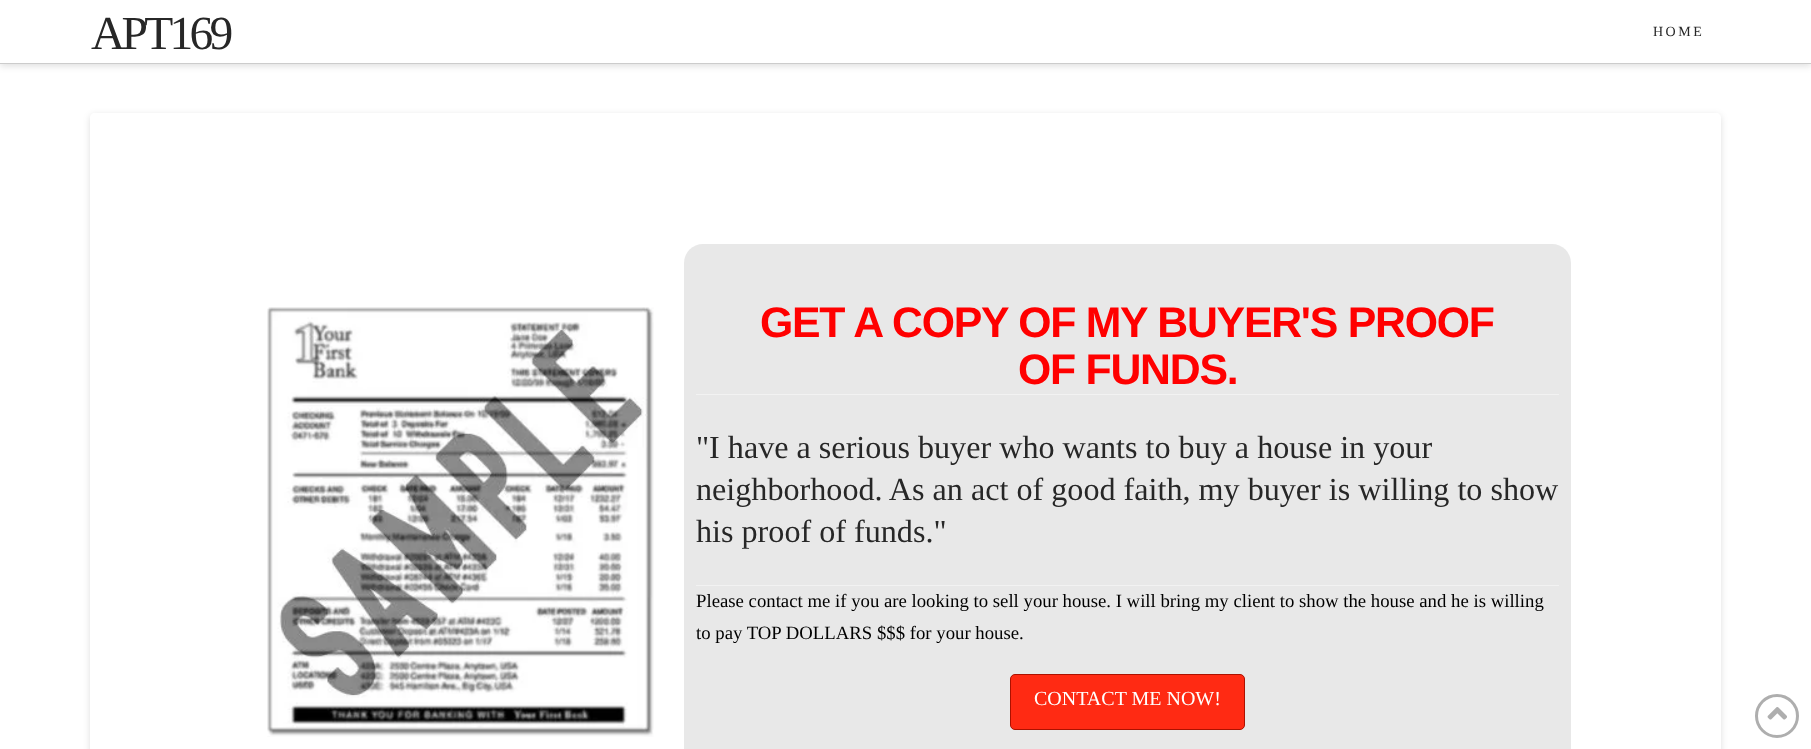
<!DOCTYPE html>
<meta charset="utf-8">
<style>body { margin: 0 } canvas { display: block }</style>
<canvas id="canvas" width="1811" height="749"></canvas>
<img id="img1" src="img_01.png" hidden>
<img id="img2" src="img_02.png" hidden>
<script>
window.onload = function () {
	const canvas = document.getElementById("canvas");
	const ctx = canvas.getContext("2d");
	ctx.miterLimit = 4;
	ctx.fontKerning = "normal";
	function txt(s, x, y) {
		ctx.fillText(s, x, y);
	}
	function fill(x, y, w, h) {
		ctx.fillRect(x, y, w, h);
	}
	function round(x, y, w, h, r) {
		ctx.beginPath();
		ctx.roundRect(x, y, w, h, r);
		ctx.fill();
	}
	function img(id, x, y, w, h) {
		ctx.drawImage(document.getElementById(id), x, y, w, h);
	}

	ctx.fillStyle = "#FFFFFF";
	fill(0, 0, 1811, 749);
	ctx.fillStyle = "rgba(0, 0, 0, 0.13)";
	ctx.filter = "blur(3.5px)";
	ctx.beginPath();
	ctx.rect(0, 3, 1811, 63);
	ctx.fill();
	ctx.filter = "none";
	ctx.fillStyle = "#FFFFFF";
	fill(0, 0, 1811, 63);
	ctx.fillStyle = "#CCCCCC";
	fill(0, 63, 1811, 1);
	ctx.save();
	ctx.beginPath();
	ctx.moveTo(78, 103);
	ctx.lineTo(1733, 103);
	ctx.lineTo(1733, 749);
	ctx.lineTo(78, 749);
	ctx.closePath();
	ctx.moveTo(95, 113);
	ctx.lineTo(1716, 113);
	ctx.bezierCurveTo(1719, 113, 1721, 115, 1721, 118);
	ctx.lineTo(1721, 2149);
	ctx.bezierCurveTo(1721, 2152, 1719, 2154, 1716, 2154);
	ctx.lineTo(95, 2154);
	ctx.bezierCurveTo(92, 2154, 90, 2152, 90, 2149);
	ctx.lineTo(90, 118);
	ctx.bezierCurveTo(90, 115, 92, 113, 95, 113);
	ctx.closePath();
	ctx.clip("evenodd");
	ctx.fillStyle = "rgba(0, 0, 0, 0.13)";
	ctx.filter = "blur(3.5px)";
	ctx.beginPath();
	ctx.roundRect(90, 115, 1631, 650, 5);
	ctx.fill();
	ctx.filter = "none";
	ctx.restore();
	img("img1", 267, 307, 387, 430);
	ctx.fillStyle = "#E8E8E8";
	round(684, 244, 887, 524, 19);
	ctx.fillStyle = "#F2F2F2";
	fill(696, 394, 863, 1);
	fill(696, 585, 863, 1);
	ctx.fillStyle = "#FF2A13";
	ctx.beginPath();
	ctx.roundRect(1010.5, 674.5, 234, 55, 4.5);
	ctx.fill();
	ctx.strokeStyle = "#AC1100";
	ctx.stroke();
	ctx.beginPath();
	ctx.arc(1777, 716, 20.5, 0, Math.PI * 2);
	ctx.strokeStyle = "#AEAEAE";
	ctx.lineWidth = 3;
	ctx.stroke();
	img("img2", 1767, 707, 20, 13);
	ctx.letterSpacing = "-3.75px";
	ctx.font = "47.5px Liberation Serif";
	ctx.fillStyle = "#272727";
	txt("APT169", 91, 49);
	ctx.letterSpacing = "2.5px";
	ctx.font = "14px Liberation Serif";
	txt("HOME", 1653, 36);
	ctx.letterSpacing = "-1.25px";
	ctx.font = "bold 42.8px Liberation Sans";
	ctx.fillStyle = "#FF0000";
	txt("GET A COPY OF MY BUYER'S PROOF", 760, 337);
	txt("OF FUNDS.", 1018, 384);
	ctx.letterSpacing = "0px";
	ctx.font = "32.15px Liberation Serif";
	ctx.fillStyle = "#272727";
	txt("\"I have a serious buyer who wants to buy a house in your", 696, 458);
	txt("neighborhood. As an act of good faith, my buyer is willing to show", 696, 500);
	txt("his proof of funds.\"", 696, 542);
	ctx.font = "18.75px Liberation Serif";
	ctx.fillStyle = "#000000";
	txt("Please contact me if you are looking to sell your house. I will bring my client to show the house and he is willing", 696, 607);
	txt("to pay TOP DOLLARS $$$ for your house.", 696, 639);
	ctx.font = "20px Liberation Serif";
	ctx.fillStyle = "#FFFFFF";
	txt("CONTACT ME NOW!", 1034, 705);
};
</script>
